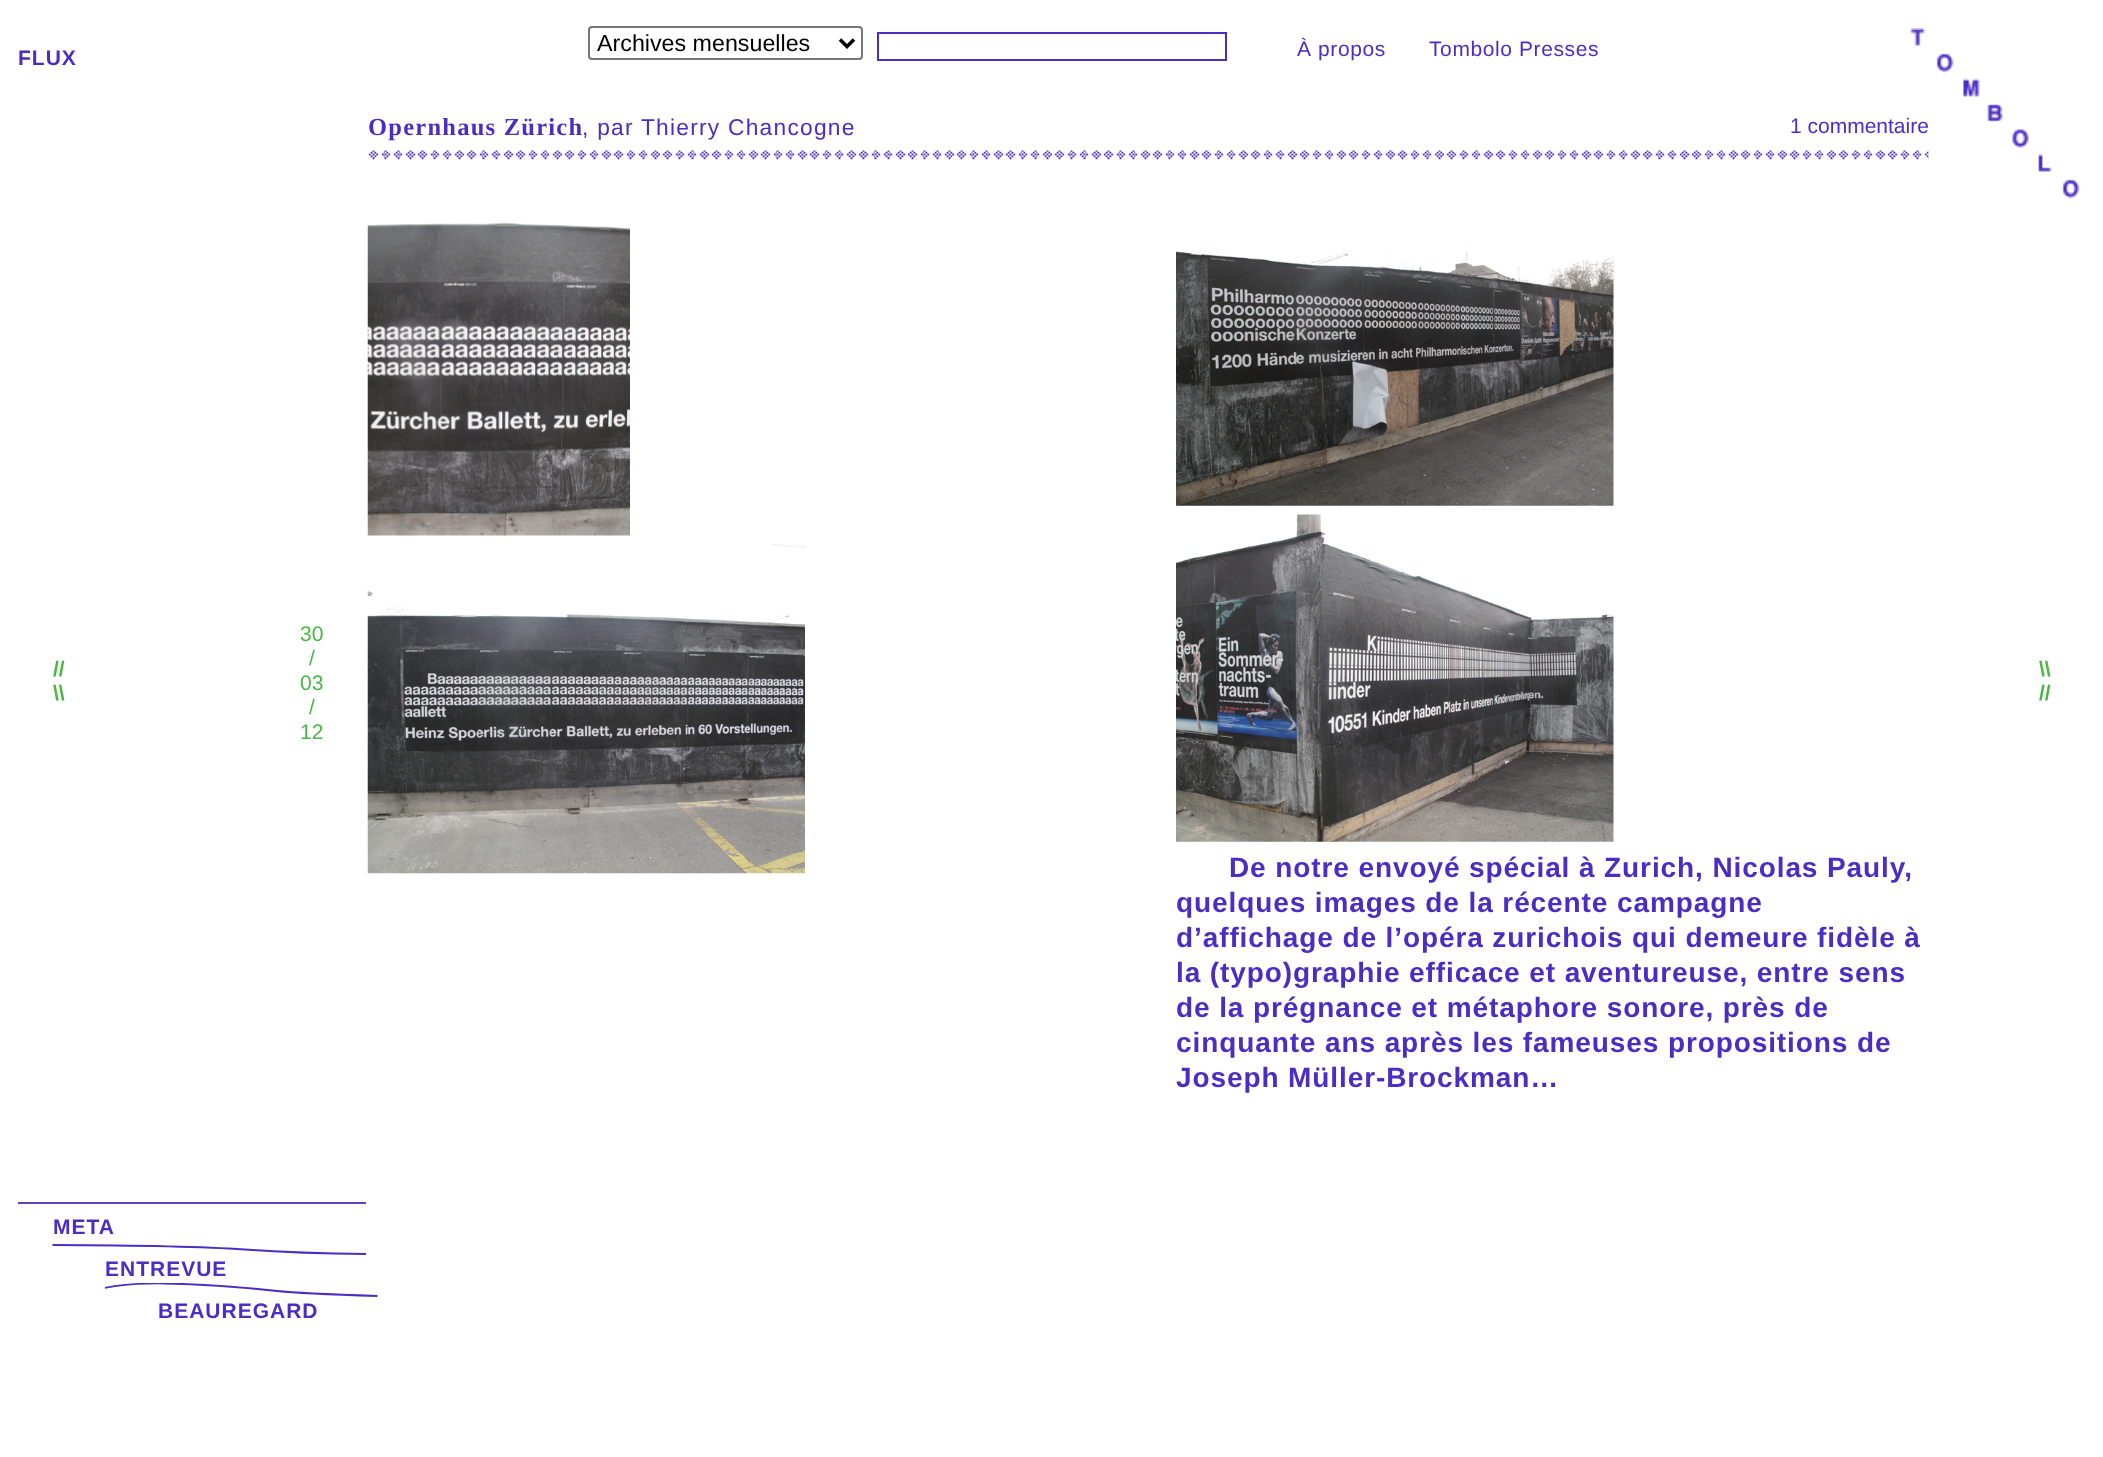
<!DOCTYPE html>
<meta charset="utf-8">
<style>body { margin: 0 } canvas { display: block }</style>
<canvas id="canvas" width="2103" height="1457"></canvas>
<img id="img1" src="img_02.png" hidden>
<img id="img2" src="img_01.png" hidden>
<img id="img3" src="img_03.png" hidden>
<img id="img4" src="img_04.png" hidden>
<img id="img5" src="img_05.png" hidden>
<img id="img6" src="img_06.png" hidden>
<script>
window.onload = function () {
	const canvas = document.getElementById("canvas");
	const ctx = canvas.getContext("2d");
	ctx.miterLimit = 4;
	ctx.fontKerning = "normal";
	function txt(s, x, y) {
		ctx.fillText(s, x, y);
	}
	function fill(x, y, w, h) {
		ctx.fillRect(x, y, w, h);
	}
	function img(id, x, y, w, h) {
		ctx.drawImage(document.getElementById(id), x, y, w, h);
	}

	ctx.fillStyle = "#FFFFFF";
	fill(0, 0, 2103, 1457);
	img("img1", 368, 150, 1561, 10);
	img("img2", 1910, 28, 170, 171);
	ctx.beginPath();
	ctx.roundRect(589, 27, 273, 32, 3);
	ctx.strokeStyle = "#767676";
	ctx.lineWidth = 2;
	ctx.stroke();
	ctx.beginPath();
	ctx.moveTo(840, 39.5);
	ctx.lineTo(847, 46.5);
	ctx.lineTo(854, 39.5);
	ctx.strokeStyle = "#000000";
	ctx.lineWidth = 3.5;
	ctx.stroke();
	ctx.strokeStyle = "#4B2DC4";
	ctx.lineWidth = 2;
	ctx.strokeRect(878, 33, 348, 27);
	img("img3", 367, 222, 263, 314);
	img("img4", 1176, 246, 438, 260);
	img("img5", 367, 544, 438, 330);
	img("img6", 1176, 514, 438, 328);
	ctx.fillStyle = "#5D42CA";
	fill(18, 1202, 348, 2);
	ctx.beginPath();
	ctx.moveTo(52.5, 1245);
	ctx.bezierCurveTo(52.5, 1245, 187.5, 1245.5, 244.5, 1249.5);
	ctx.bezierCurveTo(302, 1253.5, 366, 1254, 366, 1254);
	ctx.lineWidth = 1.8;
	ctx.stroke();
	ctx.save();
	ctx.beginPath();
	ctx.rect(105, 1283, 275, 16);
	ctx.clip();
	ctx.beginPath();
	ctx.moveTo(105, 1288);
	ctx.bezierCurveTo(105, 1288, 122, 1283, 164.5, 1283.5);
	ctx.bezierCurveTo(206.5, 1284, 254.5, 1288.5, 277, 1291);
	ctx.bezierCurveTo(300, 1293.5, 377.5, 1296, 377.5, 1296);
	ctx.stroke();
	ctx.restore();
	ctx.font = "23.25px Liberation Sans";
	ctx.fillStyle = "#000000";
	txt("Archives mensuelles", 597, 51);
	ctx.letterSpacing = "1px";
	ctx.font = "bold 21px Liberation Sans";
	ctx.fillStyle = "#4B2DC4";
	txt("FLUX", 18, 65);
	ctx.letterSpacing = "1.25px";
	ctx.font = "bold 24.5px Liberation Serif";
	txt("Opernhaus Zürich", 368, 135);
	ctx.font = "22.75px Liberation Sans";
	txt(", par Thierry Chancogne", 582, 135);
	ctx.letterSpacing = "0px";
	ctx.font = "21px Liberation Sans";
	txt("1 commentaire", 1790, 133);
	ctx.fillStyle = "#47B841";
	txt("30", 300, 641);
	txt("/", 309, 665);
	txt("03", 300, 690);
	txt("/", 309, 714);
	txt("12", 300, 739);
	ctx.letterSpacing = "0.9px";
	ctx.font = "bold 28px Liberation Sans";
	ctx.fillStyle = "#4B2DC4";
	txt("De notre envoyé spécial à Zurich, Nicolas Pauly,", 1229, 877);
	txt("quelques images de la récente campagne", 1176, 912);
	txt("d’affichage de l’opéra zurichois qui demeure fidèle à", 1176, 947);
	txt("la (typo)graphie efficace et aventureuse, entre sens", 1176, 982);
	txt("de la prégnance et métaphore sonore, près de", 1176, 1017);
	txt("cinquante ans après les fameuses propositions de", 1176, 1052);
	txt("Joseph Müller-Brockman…", 1176, 1087);
	ctx.letterSpacing = "0px";
	ctx.font = "bold 21px Liberation Sans";
	ctx.fillStyle = "#47B841";
	txt("//", 53, 676);
	txt("\\\\", 53, 700);
	txt("\\\\", 2039, 676);
	txt("//", 2039, 700);
	ctx.letterSpacing = "1px";
	ctx.fillStyle = "#4B2DC4";
	txt("META", 53, 1234);
	txt("ENTREVUE", 105, 1276);
	txt("BEAUREGARD", 158, 1318);
	ctx.letterSpacing = "0.6px";
	ctx.font = "21px Liberation Sans";
	txt("À propos", 1297, 56);
	txt("Tombolo Presses", 1429, 56);
};
</script>
